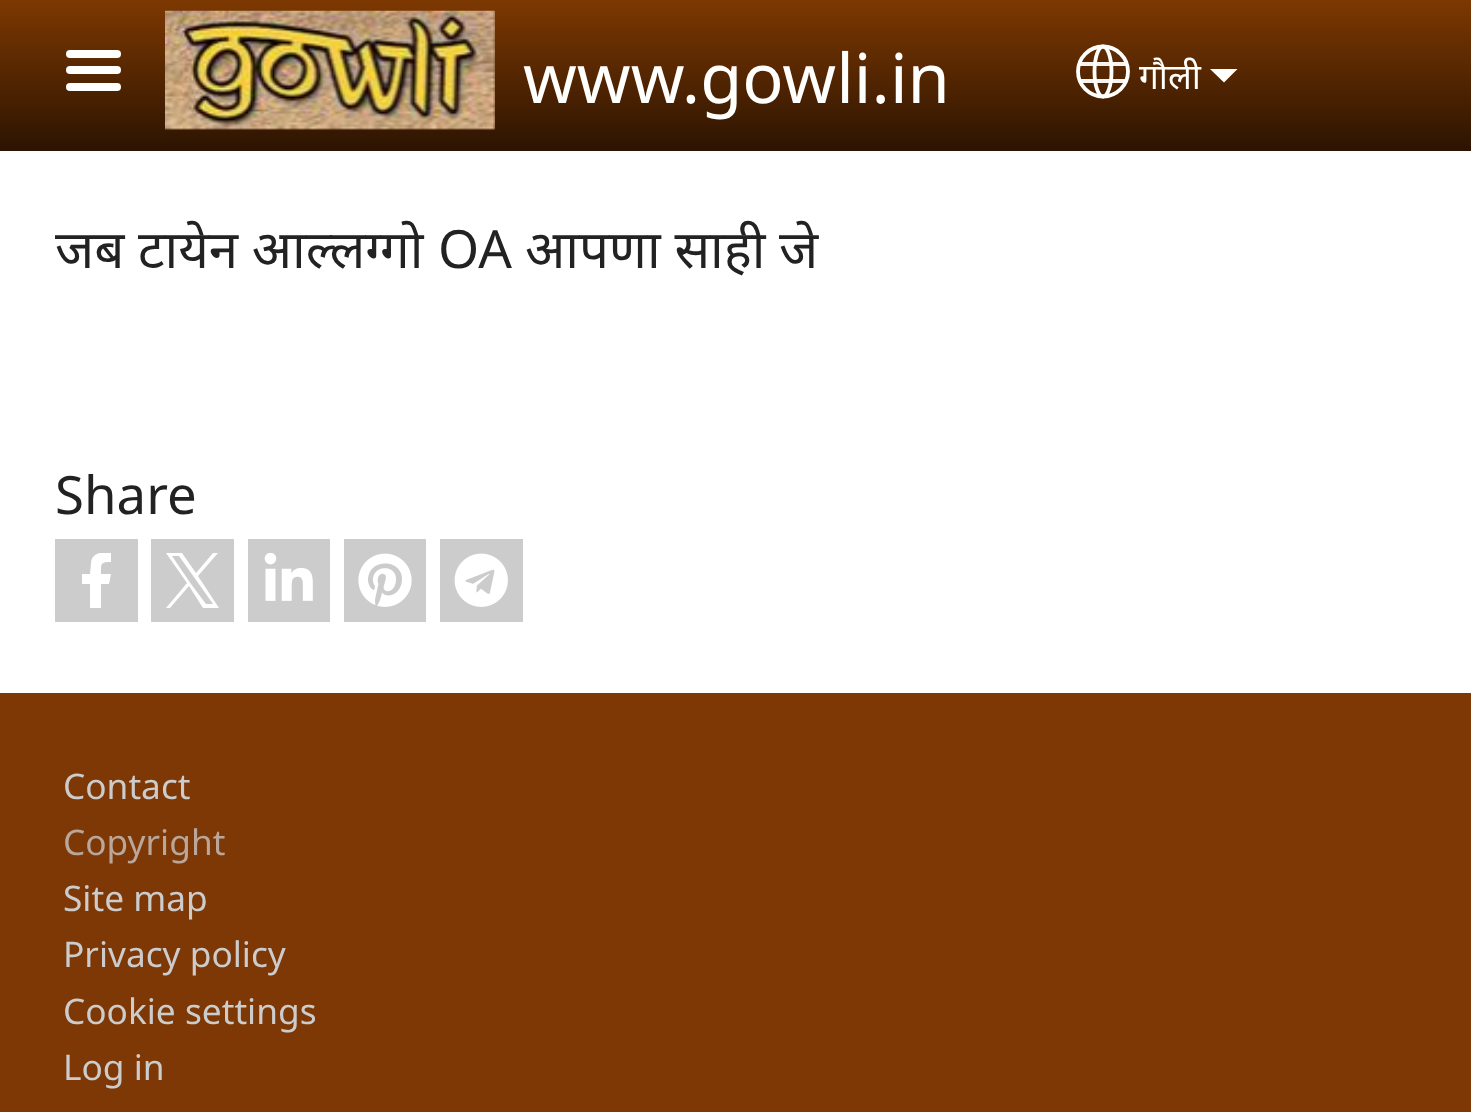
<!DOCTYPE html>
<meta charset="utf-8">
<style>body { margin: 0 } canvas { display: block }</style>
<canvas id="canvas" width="1471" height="1112"></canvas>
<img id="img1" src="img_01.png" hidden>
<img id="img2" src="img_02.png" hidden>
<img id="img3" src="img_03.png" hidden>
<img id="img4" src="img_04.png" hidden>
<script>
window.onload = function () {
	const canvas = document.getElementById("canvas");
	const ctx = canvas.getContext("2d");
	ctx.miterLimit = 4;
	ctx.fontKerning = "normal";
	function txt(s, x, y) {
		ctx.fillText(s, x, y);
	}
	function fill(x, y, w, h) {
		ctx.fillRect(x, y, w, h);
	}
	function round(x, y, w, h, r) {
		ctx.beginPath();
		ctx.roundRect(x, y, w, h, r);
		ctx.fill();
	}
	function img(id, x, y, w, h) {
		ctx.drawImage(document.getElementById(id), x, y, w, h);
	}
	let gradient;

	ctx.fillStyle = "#FFFFFF";
	fill(0, 0, 1471, 1112);
	gradient = ctx.createLinearGradient(736, 0, 736, 151);
	gradient.addColorStop(0, "#7D3801");
	gradient.addColorStop(1, "#2C1401");
	ctx.fillStyle = gradient;
	fill(0, 0, 1471, 151);
	ctx.fillStyle = "#FFFFFE";
	round(66, 50, 55, 8, 4);
	round(66, 66, 55, 8, 4);
	round(66, 83, 55, 8, 4);
	img("img1", 165, 10, 330, 120);
	ctx.beginPath();
	ctx.arc(1103, 71.5, 25, 0, Math.PI * 2);
	ctx.strokeStyle = "#FFFFFE";
	ctx.lineWidth = 3.8;
	ctx.stroke();
	ctx.beginPath();
	ctx.ellipse(1103, 71.5, 8.5, 25, 0, 0, Math.PI * 2);
	ctx.stroke();
	ctx.fillStyle = "rgba(255, 255, 254, 0.95)";
	fill(1079, 62, 48, 4);
	fill(1079, 79, 48, 4);
	ctx.fillStyle = "#FFFFFE";
	ctx.beginPath();
	ctx.moveTo(1210, 69);
	ctx.lineTo(1237.5, 69);
	ctx.lineTo(1224, 82.5);
	ctx.closePath();
	ctx.fill();
	ctx.fillStyle = "#CCCCCC";
	fill(55, 539, 83, 83);
	ctx.save();
	ctx.beginPath();
	ctx.rect(69, 553, 55, 55);
	ctx.clip();
	ctx.fillStyle = "#FFFFFF";
	ctx.beginPath();
	ctx.moveTo(109, 584);
	ctx.lineTo(111, 574);
	ctx.lineTo(101, 574);
	ctx.bezierCurveTo(101, 564, 100, 562, 111, 562);
	ctx.lineTo(111, 553);
	ctx.bezierCurveTo(102, 552, 92, 552, 91, 563);
	ctx.lineTo(90, 574);
	ctx.lineTo(82, 574);
	ctx.lineTo(82, 584);
	ctx.lineTo(90, 584);
	ctx.lineTo(90, 608);
	ctx.lineTo(101, 608);
	ctx.lineTo(101, 584);
	ctx.closePath();
	ctx.fill();
	ctx.restore();
	fill(151, 539, 83, 83);
	ctx.fillStyle = "#FFFFFF";
	ctx.beginPath();
	ctx.moveTo(198, 576);
	ctx.lineTo(218, 553);
	ctx.lineTo(213, 553);
	ctx.lineTo(196, 573);
	ctx.lineTo(182, 553);
	ctx.lineTo(166, 553);
	ctx.lineTo(187, 583);
	ctx.lineTo(166, 608);
	ctx.lineTo(170, 608);
	ctx.lineTo(189, 586);
	ctx.lineTo(203, 608);
	ctx.lineTo(219, 608);
	ctx.closePath();
	ctx.moveTo(191, 584);
	ctx.lineTo(172, 556);
	ctx.lineTo(179, 556);
	ctx.lineTo(213, 604);
	ctx.lineTo(206, 604);
	ctx.closePath();
	ctx.fill();
	ctx.fillStyle = "#CCCCCC";
	fill(248, 539, 82, 83);
	img("img2", 264, 553, 49, 48);
	fill(344, 539, 82, 83);
	img("img3", 358, 553, 54, 54);
	fill(440, 539, 83, 83);
	img("img4", 454, 553, 54, 54);
	ctx.fillStyle = "#7D3805";
	fill(0, 693, 1471, 419);
	ctx.font = "68.5px Noto Sans";
	ctx.fillStyle = "#FFFFFE";
	txt("www.gowli.in", 523, 103);
	ctx.font = "35.25px Noto Sans Devanagari";
	txt("गौली", 1139, 89);
	ctx.font = "52.75px Noto Sans Devanagari";
	ctx.fillStyle = "#222222";
	txt("जब टायेन आल्लग्गो", 55, 268);
	ctx.font = "52.75px Noto Sans";
	txt("OA", 438, 268);
	ctx.font = "52.75px Noto Sans Devanagari";
	txt("आपणा साही जे", 525, 268);
	ctx.font = "52.75px Noto Sans";
	txt("Share", 55, 514);
	ctx.font = "35.25px Noto Sans";
	ctx.fillStyle = "#CCCCCC";
	txt("Contact", 63, 799);
	ctx.fillStyle = "#B8A79A";
	txt("Copyright", 63, 855);
	ctx.fillStyle = "#CCCCCC";
	txt("Site map", 63, 911);
	txt("Privacy policy", 63, 967);
	txt("Cookie settings", 63, 1024);
	txt("Log in", 63, 1080);
};
</script>
